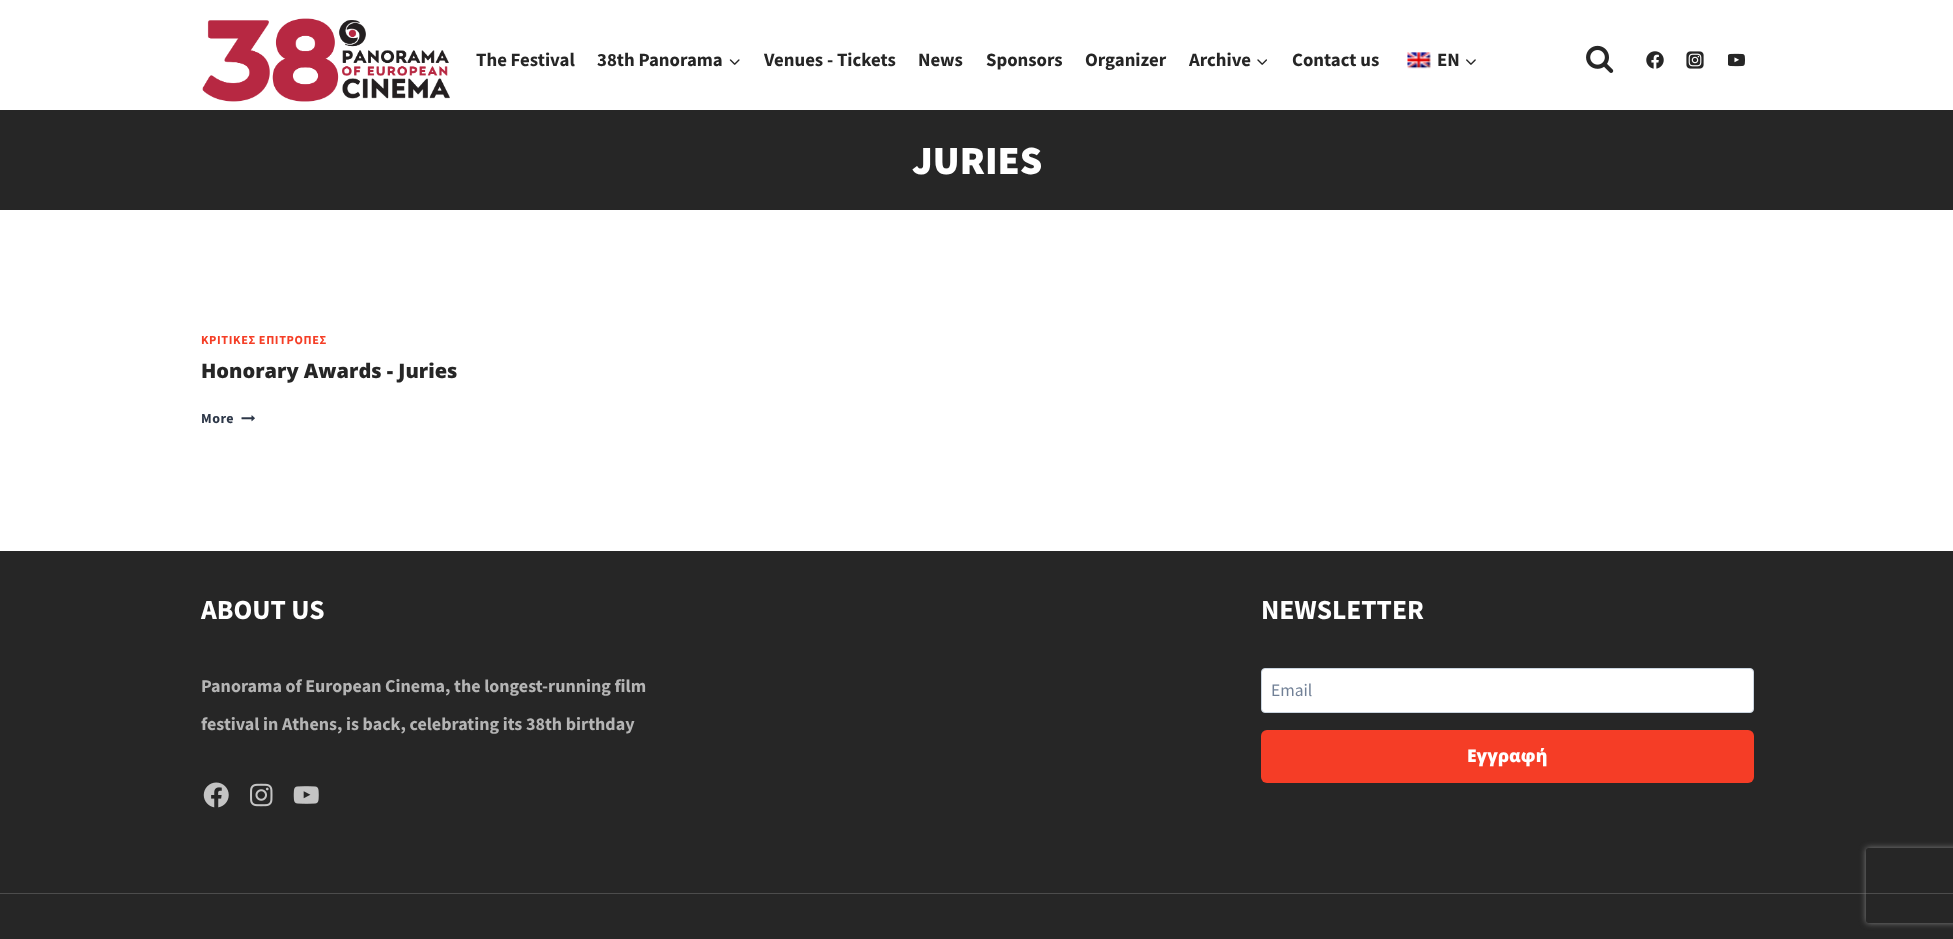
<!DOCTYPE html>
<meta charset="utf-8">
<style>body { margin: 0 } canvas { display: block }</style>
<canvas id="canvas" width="1953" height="939"></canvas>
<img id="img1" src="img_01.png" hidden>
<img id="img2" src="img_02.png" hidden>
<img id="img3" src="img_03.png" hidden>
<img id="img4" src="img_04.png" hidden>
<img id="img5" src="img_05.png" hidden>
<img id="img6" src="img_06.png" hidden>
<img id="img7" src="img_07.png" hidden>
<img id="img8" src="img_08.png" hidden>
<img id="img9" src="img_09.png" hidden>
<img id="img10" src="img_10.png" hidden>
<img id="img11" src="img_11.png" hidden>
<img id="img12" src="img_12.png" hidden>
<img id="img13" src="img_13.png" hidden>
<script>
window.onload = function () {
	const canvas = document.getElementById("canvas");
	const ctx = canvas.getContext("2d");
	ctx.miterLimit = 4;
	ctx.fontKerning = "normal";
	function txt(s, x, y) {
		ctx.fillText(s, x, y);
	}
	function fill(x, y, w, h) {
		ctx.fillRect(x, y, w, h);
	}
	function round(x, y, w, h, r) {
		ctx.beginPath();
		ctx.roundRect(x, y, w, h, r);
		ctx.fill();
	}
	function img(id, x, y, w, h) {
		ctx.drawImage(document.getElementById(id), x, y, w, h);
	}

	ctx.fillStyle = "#FFFFFF";
	fill(0, 0, 1953, 939);
	img("img1", 202, 18, 248, 84);
	img("img2", 729, 59, 11, 6);
	img("img3", 1257, 59, 10, 6);
	img("img4", 1407, 52, 24, 17);
	img("img5", 1466, 59, 10, 6);
	img("img6", 1586, 45, 28, 28);
	img("img7", 1646, 51, 18, 18);
	img("img8", 1686, 51, 18, 18);
	img("img9", 1728, 53, 17, 14);
	ctx.fillStyle = "#262626";
	fill(0, 110, 1953, 100);
	img("img10", 241, 415, 14, 7);
	fill(0, 551, 1953, 342);
	img("img11", 203, 782, 26, 26);
	img("img12", 250, 783, 23, 24);
	img("img13", 293, 786, 26, 18);
	ctx.fillStyle = "#FFFFFF";
	ctx.beginPath();
	ctx.roundRect(1261.5, 668.5, 492, 44, 3.5);
	ctx.fill();
	ctx.strokeStyle = "#CBD5E0";
	ctx.stroke();
	ctx.fillStyle = "#F53D26";
	round(1261, 730, 493, 53, 6);
	ctx.fillStyle = "#262626";
	fill(0, 894, 1953, 45);
	ctx.fillStyle = "#4C4C4C";
	fill(0, 893, 1953, 1);
	ctx.save();
	ctx.beginPath();
	ctx.moveTo(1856, 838);
	ctx.lineTo(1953, 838);
	ctx.lineTo(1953, 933);
	ctx.lineTo(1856, 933);
	ctx.closePath();
	ctx.moveTo(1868.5, 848);
	ctx.lineTo(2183.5, 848);
	ctx.bezierCurveTo(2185, 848, 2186, 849, 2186, 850.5);
	ctx.lineTo(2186, 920.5);
	ctx.bezierCurveTo(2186, 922, 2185, 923, 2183.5, 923);
	ctx.lineTo(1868.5, 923);
	ctx.bezierCurveTo(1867, 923, 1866, 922, 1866, 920.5);
	ctx.lineTo(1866, 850.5);
	ctx.bezierCurveTo(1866, 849, 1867, 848, 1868.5, 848);
	ctx.closePath();
	ctx.clip("evenodd");
	ctx.fillStyle = "#808080";
	ctx.filter = "blur(3px)";
	ctx.beginPath();
	ctx.roundRect(1866, 848, 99, 75, 2.5);
	ctx.fill();
	ctx.filter = "none";
	ctx.restore();
	ctx.font = "bold 18.75px Source Sans Pro";
	ctx.fillStyle = "#262626";
	txt("The Festival", 476, 66);
	txt("38th Panorama", 597, 66);
	txt("Venues - Tickets", 764, 66);
	txt("News", 918, 66);
	txt("Sponsors", 986, 66);
	txt("Organizer", 1085, 66);
	txt("Archive", 1189, 66);
	txt("Contact us", 1292, 66);
	txt("EN", 1437, 66);
	ctx.font = "900 40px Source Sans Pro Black";
	ctx.fillStyle = "#FFFFFF";
	txt("JURIES", 912, 174);
	ctx.letterSpacing = "0.6px";
	ctx.font = "bold 12.25px Source Sans Pro";
	ctx.fillStyle = "#F53E26";
	txt("ΚΡΙΤΙΚΕΣ ΕΠΙΤΡΟΠΕΣ", 201, 344);
	ctx.letterSpacing = "0px";
	ctx.font = "800 20px Open Sans";
	ctx.fillStyle = "#262626";
	txt("Honorary Awards - Juries", 201, 378);
	ctx.letterSpacing = "0.5px";
	ctx.font = "bold 14px Source Sans Pro";
	ctx.fillStyle = "#2D3748";
	txt("More", 201, 423);
	ctx.letterSpacing = "0px";
	ctx.font = "bold 27.5px Source Sans Pro";
	ctx.fillStyle = "#FFFFFF";
	txt("ABOUT US", 201, 619);
	ctx.font = "bold 18px Source Sans Pro";
	ctx.fillStyle = "#B4B4B4";
	txt("Panorama of European Cinema, the longest-running film", 201, 692);
	txt("festival in Athens, is back, celebrating its 38th birthday", 201, 730);
	ctx.font = "bold 27.5px Source Sans Pro";
	ctx.fillStyle = "#FFFFFF";
	txt("NEWSLETTER", 1261, 619);
	ctx.font = "17.5px Source Sans Pro";
	ctx.fillStyle = "#718096";
	txt("Email", 1271, 696);
	ctx.font = "800 17.5px Open Sans";
	ctx.fillStyle = "#FFFFFF";
	txt("Εγγραφή", 1467, 762);
};
</script>
